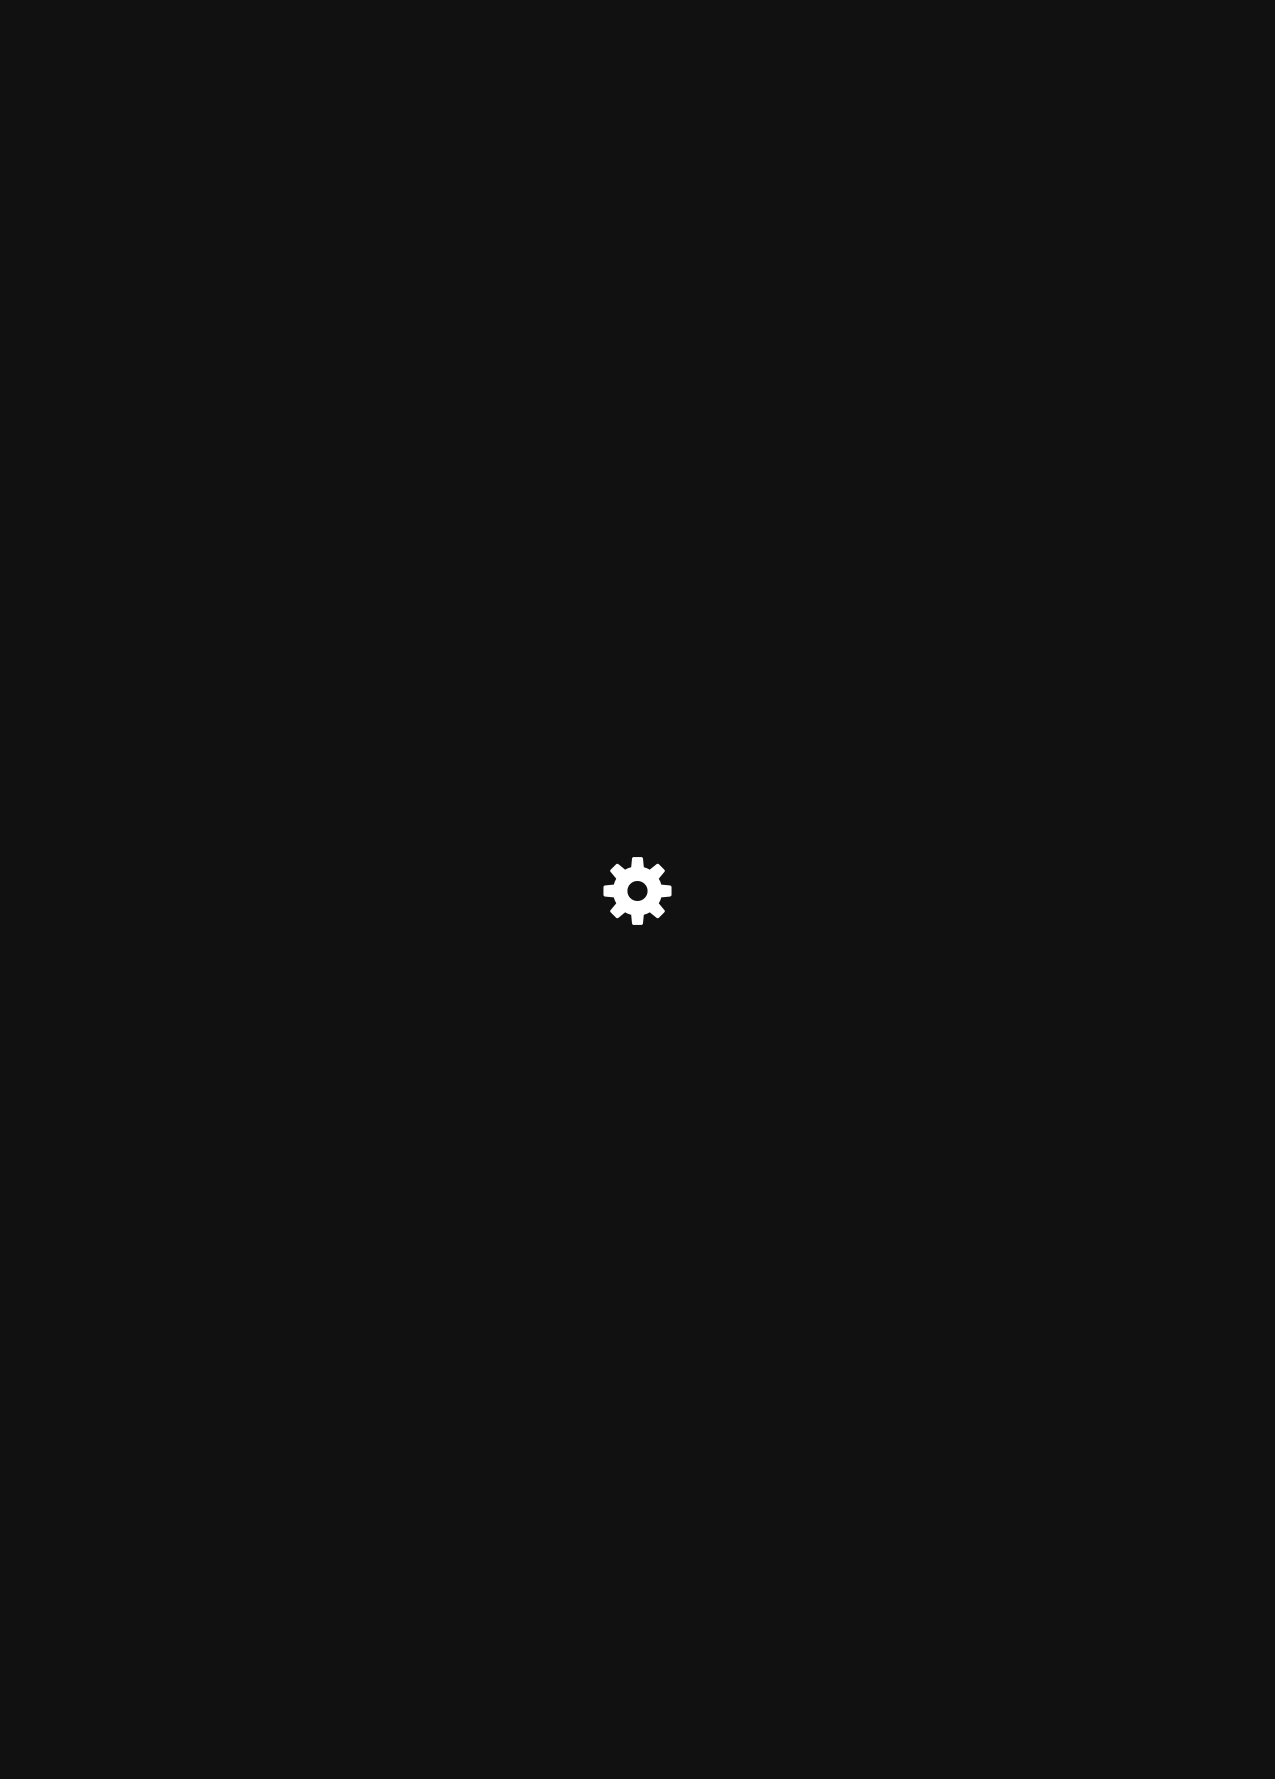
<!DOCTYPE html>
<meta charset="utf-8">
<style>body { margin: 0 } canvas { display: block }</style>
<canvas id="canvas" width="1275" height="1779"></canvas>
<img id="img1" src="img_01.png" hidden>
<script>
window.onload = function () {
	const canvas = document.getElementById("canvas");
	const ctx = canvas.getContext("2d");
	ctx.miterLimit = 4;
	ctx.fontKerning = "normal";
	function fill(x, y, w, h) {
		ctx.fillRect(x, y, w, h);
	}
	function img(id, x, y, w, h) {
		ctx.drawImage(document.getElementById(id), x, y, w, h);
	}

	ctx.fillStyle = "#111111";
	fill(0, 0, 1275, 1779);
	img("img1", 603, 857, 69, 68);
};
</script>
